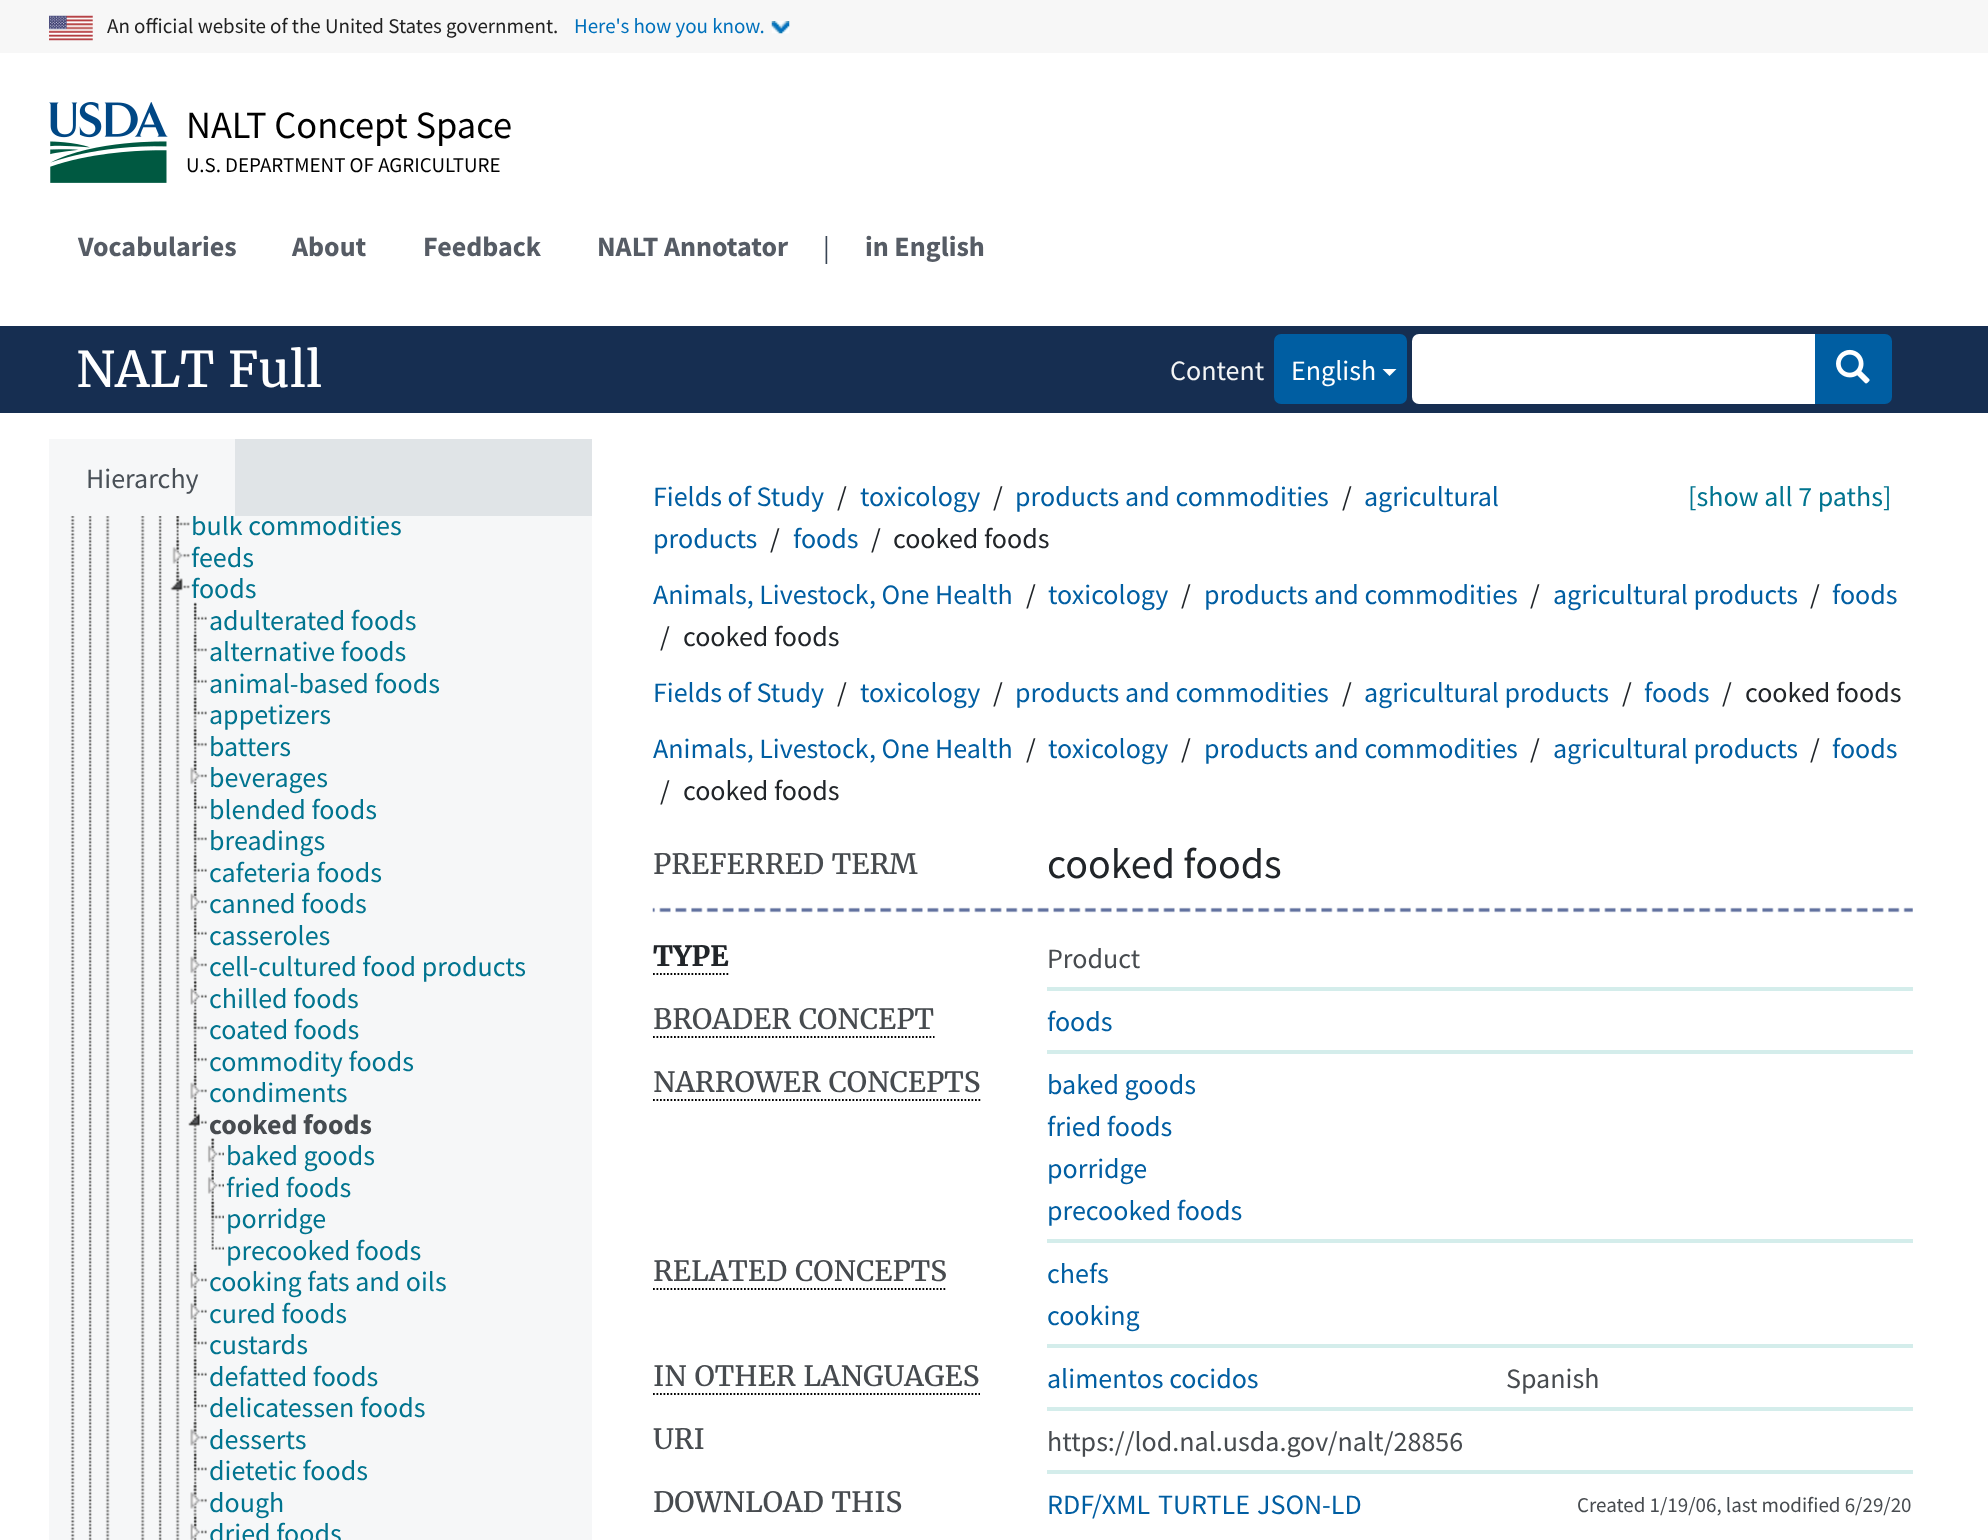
<!DOCTYPE html>
<meta charset="utf-8">
<style>body { margin: 0 } canvas { display: block }</style>
<canvas id="canvas" width="1988" height="1540"></canvas>
<img id="img1" src="img_01.png" hidden>
<img id="img2" src="img_02.png" hidden>
<img id="img3" src="img_03.png" hidden>
<img id="img4" src="img_04.png" hidden>
<img id="img5" src="img_05.png" hidden>
<img id="img6" src="img_06.png" hidden>
<img id="img7" src="img_07.png" hidden>
<img id="img8" src="img_08.png" hidden>
<img id="img9" src="img_09.png" hidden>
<img id="img10" src="img_10.png" hidden>
<img id="img11" src="img_11.png" hidden>
<img id="img12" src="img_12.png" hidden>
<img id="img13" src="img_13.png" hidden>
<img id="img14" src="img_14.png" hidden>
<img id="img15" src="img_15.png" hidden>
<img id="img16" src="img_16.png" hidden>
<img id="img17" src="img_17.png" hidden>
<img id="img18" src="img_18.png" hidden>
<img id="img19" src="img_19.png" hidden>
<img id="img20" src="img_20.png" hidden>
<img id="img21" src="img_21.png" hidden>
<img id="img22" src="img_22.png" hidden>
<img id="img23" src="img_23.png" hidden>
<img id="img24" src="img_24.png" hidden>
<img id="img25" src="img_25.png" hidden>
<img id="img26" src="img_26.png" hidden>
<img id="img27" src="img_27.png" hidden>
<img id="img28" src="img_28.png" hidden>
<img id="img29" src="img_29.png" hidden>
<img id="img30" src="img_30.png" hidden>
<img id="img31" src="img_31.png" hidden>
<img id="img32" src="img_32.png" hidden>
<img id="img33" src="img_33.png" hidden>
<img id="img34" src="img_34.png" hidden>
<img id="img35" src="img_35.png" hidden>
<img id="img36" src="img_36.png" hidden>
<img id="img37" src="img_37.png" hidden>
<img id="img38" src="img_38.png" hidden>
<img id="img39" src="img_39.png" hidden>
<img id="img40" src="img_40.png" hidden>
<img id="img41" src="img_41.png" hidden>
<img id="img42" src="img_42.png" hidden>
<img id="img43" src="img_43.png" hidden>
<img id="img44" src="img_44.png" hidden>
<img id="img45" src="img_45.png" hidden>
<img id="img46" src="img_46.png" hidden>
<img id="img47" src="img_47.png" hidden>
<img id="img48" src="img_48.png" hidden>
<img id="img49" src="img_49.png" hidden>
<img id="img50" src="img_50.png" hidden>
<img id="img51" src="img_51.png" hidden>
<img id="img52" src="img_52.png" hidden>
<img id="img53" src="img_53.png" hidden>
<img id="img54" src="img_54.png" hidden>
<img id="img55" src="img_55.png" hidden>
<img id="img56" src="img_56.png" hidden>
<img id="img57" src="img_57.png" hidden>
<img id="img58" src="img_58.png" hidden>
<img id="img59" src="img_59.png" hidden>
<img id="img60" src="img_60.png" hidden>
<img id="img61" src="img_61.png" hidden>
<img id="img62" src="img_62.png" hidden>
<img id="img63" src="img_63.png" hidden>
<script>
window.onload = function () {
	const canvas = document.getElementById("canvas");
	const ctx = canvas.getContext("2d");
	ctx.miterLimit = 4;
	ctx.fontKerning = "normal";
	function txt(s, x, y) {
		ctx.fillText(s, x, y);
	}
	function fill(x, y, w, h) {
		ctx.fillRect(x, y, w, h);
	}
	function round(x, y, w, h, r) {
		ctx.beginPath();
		ctx.roundRect(x, y, w, h, r);
		ctx.fill();
	}
	function img(id, x, y, w, h) {
		ctx.drawImage(document.getElementById(id), x, y, w, h);
	}

	ctx.fillStyle = "#FFFFFF";
	fill(0, 0, 1988, 1540);
	ctx.fillStyle = "#F7F7F7";
	fill(0, 0, 1988, 53);
	img("img1", 49, 15, 44, 26);
	img("img2", 771, 21, 19, 13);
	img("img3", 49, 102, 119, 81);
	ctx.fillStyle = "#162E51";
	fill(0, 326, 1988, 87);
	ctx.fillStyle = "#005EA2";
	round(1274, 334, 133, 70, 7);
	ctx.fillStyle = "#FFFFFF";
	ctx.beginPath();
	ctx.moveTo(1382.5, 369);
	ctx.lineTo(1396.5, 369);
	ctx.lineTo(1389.5, 376);
	ctx.closePath();
	ctx.fill();
	ctx.beginPath();
	ctx.roundRect(1412, 334, 405, 70, [7, 0, 0, 7]);
	ctx.fill();
	ctx.fillStyle = "#005EA2";
	ctx.beginPath();
	ctx.roundRect(1815, 334, 77, 70, [0, 7, 7, 0]);
	ctx.fill();
	img("img4", 1836, 349, 34, 35);
	ctx.fillStyle = "#E0E4E7";
	fill(235, 439, 357, 77);
	ctx.fillStyle = "#F6F7F8";
	fill(49, 439, 186, 77);
	fill(49, 516, 543, 1024);
	img("img5", 70, 516, 5, 1024);
	img("img6", 88, 516, 4, 1024);
	img("img7", 105, 516, 5, 1024);
	img("img8", 140, 516, 5, 1024);
	img("img9", 158, 516, 4, 1024);
	img("img10", 176, 516, 3, 24);
	img("img11", 176, 516, 14, 10);
	img("img12", 176, 539, 3, 32);
	img("img13", 172, 540, 18, 24);
	img("img14", 175, 571, 5, 969);
	img("img15", 170, 571, 20, 20);
	img("img16", 193, 602, 4, 32);
	img("img17", 193, 602, 14, 18);
	img("img18", 193, 634, 4, 32);
	img("img19", 193, 634, 14, 18);
	img("img20", 193, 666, 4, 32);
	img("img21", 193, 665, 14, 18);
	img("img22", 193, 697, 4, 32);
	img("img23", 193, 697, 14, 18);
	img("img24", 193, 728, 4, 32);
	img("img25", 193, 729, 14, 18);
	img("img26", 193, 760, 4, 32);
	img("img27", 190, 760, 17, 25);
	img("img28", 193, 792, 4, 32);
	img("img29", 193, 791, 14, 18);
	img("img30", 193, 823, 4, 32);
	img("img31", 193, 823, 14, 18);
	img("img20", 193, 855, 4, 32);
	img("img32", 193, 854, 14, 18);
	img("img22", 193, 886, 4, 32);
	img("img33", 190, 886, 17, 25);
	img("img34", 193, 917, 4, 32);
	img("img35", 193, 917, 14, 18);
	img("img36", 193, 949, 4, 32);
	img("img37", 190, 949, 17, 25);
	img("img38", 193, 980, 4, 32);
	img("img39", 190, 980, 17, 25);
	img("img36", 193, 1012, 4, 32);
	img("img40", 193, 1012, 14, 18);
	img("img34", 193, 1043, 4, 32);
	img("img41", 193, 1044, 14, 18);
	img("img42", 193, 1075, 4, 32);
	img("img43", 190, 1075, 17, 25);
	img("img44", 193, 1107, 4, 158);
	img("img45", 188, 1106, 19, 20);
	img("img46", 210, 1138, 5, 32);
	img("img47", 207, 1138, 17, 25);
	img("img48", 211, 1169, 3, 32);
	img("img49", 207, 1170, 17, 24);
	img("img46", 210, 1201, 5, 32);
	img("img50", 211, 1201, 13, 18);
	img("img51", 211, 1232, 13, 18);
	img("img22", 193, 1264, 4, 32);
	img("img52", 190, 1264, 17, 25);
	img("img20", 193, 1296, 4, 32);
	img("img53", 190, 1295, 17, 25);
	img("img54", 193, 1327, 4, 32);
	img("img55", 193, 1327, 14, 18);
	img("img20", 193, 1359, 4, 32);
	img("img56", 193, 1358, 14, 18);
	img("img57", 193, 1390, 4, 32);
	img("img58", 193, 1390, 14, 18);
	img("img20", 193, 1422, 4, 32);
	img("img59", 190, 1422, 17, 24);
	img("img57", 193, 1453, 4, 32);
	img("img60", 193, 1453, 14, 18);
	img("img20", 193, 1485, 4, 32);
	img("img59", 190, 1485, 17, 24);
	img("img61", 193, 1516, 4, 24);
	img("img62", 190, 1516, 17, 24);
	img("img63", 652, 907, 1261, 6);
	ctx.beginPath();
	ctx.moveTo(653, 974);
	ctx.lineTo(730, 974);
	ctx.strokeStyle = "#000000";
	ctx.lineWidth = 1.8;
	ctx.setLineDash([1.75, 1.75]);
	ctx.stroke();
	ctx.fillStyle = "#D4EDEB";
	fill(1047, 987, 866, 4);
	ctx.beginPath();
	ctx.moveTo(653, 1037);
	ctx.lineTo(934.5, 1037);
	ctx.stroke();
	fill(1047, 1050, 866, 4);
	ctx.beginPath();
	ctx.moveTo(653, 1100);
	ctx.lineTo(982, 1100);
	ctx.stroke();
	fill(1047, 1239, 866, 4);
	ctx.beginPath();
	ctx.moveTo(653, 1289);
	ctx.lineTo(947, 1289);
	ctx.stroke();
	fill(1047, 1344, 866, 4);
	ctx.beginPath();
	ctx.moveTo(653, 1394);
	ctx.lineTo(980, 1394);
	ctx.stroke();
	fill(1047, 1407, 866, 4);
	fill(1047, 1470, 866, 4);
	ctx.font = "21px Source Sans Pro";
	ctx.fillStyle = "#212121";
	txt("An official website of the United States government.", 107, 33);
	ctx.fillStyle = "#0071BC";
	txt("Here's how you know.", 574, 33);
	ctx.font = "38.5px Source Sans Pro";
	ctx.fillStyle = "#000000";
	txt("NALT Concept Space", 186, 138);
	ctx.font = "21px Source Sans Pro";
	txt("U.S. DEPARTMENT OF AGRICULTURE", 186, 172);
	ctx.font = "bold 28px Source Sans Pro";
	ctx.fillStyle = "#565C65";
	txt("Vocabularies", 78, 256);
	txt("About", 292, 256);
	txt("Feedback", 423, 256);
	txt("NALT Annotator", 597, 256);
	ctx.font = "28px Source Sans Pro";
	ctx.fillStyle = "#394554";
	txt("|", 823, 257);
	ctx.font = "bold 28px Source Sans Pro";
	ctx.fillStyle = "#565C65";
	txt("in English", 865, 256);
	ctx.font = "49px Merriweather";
	ctx.fillStyle = "#FFFFFF";
	txt("NALT Full", 76, 387);
	ctx.font = "28px Source Sans Pro";
	ctx.fillStyle = "#F3F5F6";
	txt("Content", 1170, 380);
	ctx.fillStyle = "#FFFFFF";
	txt("English", 1291, 380);
	ctx.fillStyle = "#495057";
	txt("Hierarchy", 86, 488);
	ctx.save();
	ctx.beginPath();
	ctx.rect(49, 516, 543, 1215);
	ctx.clip();
	ctx.fillStyle = "#00748F";
	txt("bulk commodities", 191, 535);
	ctx.restore();
	ctx.fillStyle = "#00748F";
	txt("feeds", 191, 567);
	txt("foods", 191, 598);
	txt("adulterated foods", 209, 630);
	txt("alternative foods", 209, 661);
	txt("animal-based foods", 209, 693);
	txt("appetizers", 209, 724);
	txt("batters", 209, 756);
	txt("beverages", 209, 787);
	txt("blended foods", 209, 819);
	txt("breadings", 209, 850);
	txt("cafeteria foods", 209, 882);
	txt("canned foods", 209, 913);
	txt("casseroles", 209, 945);
	txt("cell-cultured food products", 209, 976);
	txt("chilled foods", 209, 1008);
	txt("coated foods", 209, 1039);
	txt("commodity foods", 209, 1071);
	txt("condiments", 209, 1102);
	ctx.font = "bold 28px Source Sans Pro";
	ctx.fillStyle = "#474B4F";
	txt("cooked foods", 209, 1134);
	ctx.font = "28px Source Sans Pro";
	ctx.fillStyle = "#00748F";
	txt("baked goods", 226, 1165);
	txt("fried foods", 226, 1197);
	txt("porridge", 226, 1228);
	txt("precooked foods", 226, 1260);
	txt("cooking fats and oils", 209, 1291);
	txt("cured foods", 209, 1323);
	txt("custards", 209, 1354);
	txt("defatted foods", 209, 1386);
	txt("delicatessen foods", 209, 1417);
	txt("desserts", 209, 1449);
	txt("dietetic foods", 209, 1480);
	txt("dough", 209, 1512);
	txt("dried foods", 209, 1543);
	ctx.fillStyle = "#005EA2";
	txt("Fields of Study", 653, 506);
	ctx.fillStyle = "#212529";
	txt("/", 837, 506);
	ctx.fillStyle = "#005EA2";
	txt("toxicology", 860, 506);
	ctx.fillStyle = "#212529";
	txt("/", 993, 506);
	ctx.fillStyle = "#005EA2";
	txt("products and commodities", 1015, 506);
	ctx.fillStyle = "#212529";
	txt("/", 1342, 506);
	ctx.fillStyle = "#005EA2";
	txt("agricultural", 1364, 506);
	txt("products", 653, 548);
	ctx.fillStyle = "#212529";
	txt("/", 770, 548);
	ctx.fillStyle = "#005EA2";
	txt("foods", 793, 548);
	ctx.fillStyle = "#212529";
	txt("/", 871, 548);
	txt("cooked foods", 893, 548);
	ctx.fillStyle = "#00748F";
	txt("[show all 7 paths]", 1688, 506);
	ctx.fillStyle = "#005EA2";
	txt("Animals, Livestock, One Health", 653, 604);
	ctx.fillStyle = "#212529";
	txt("/", 1026, 604);
	ctx.fillStyle = "#005EA2";
	txt("toxicology", 1048, 604);
	ctx.fillStyle = "#212529";
	txt("/", 1181, 604);
	ctx.fillStyle = "#005EA2";
	txt("products and commodities", 1204, 604);
	ctx.fillStyle = "#212529";
	txt("/", 1530, 604);
	ctx.fillStyle = "#005EA2";
	txt("agricultural products", 1553, 604);
	ctx.fillStyle = "#212529";
	txt("/", 1810, 604);
	ctx.fillStyle = "#005EA2";
	txt("foods", 1832, 604);
	ctx.fillStyle = "#212529";
	txt("/", 660, 646);
	txt("cooked foods", 683, 646);
	ctx.fillStyle = "#005EA2";
	txt("Fields of Study", 653, 702);
	ctx.fillStyle = "#212529";
	txt("/", 837, 702);
	ctx.fillStyle = "#005EA2";
	txt("toxicology", 860, 702);
	ctx.fillStyle = "#212529";
	txt("/", 993, 702);
	ctx.fillStyle = "#005EA2";
	txt("products and commodities", 1015, 702);
	ctx.fillStyle = "#212529";
	txt("/", 1342, 702);
	ctx.fillStyle = "#005EA2";
	txt("agricultural products", 1364, 702);
	ctx.fillStyle = "#212529";
	txt("/", 1622, 702);
	ctx.fillStyle = "#005EA2";
	txt("foods", 1644, 702);
	ctx.fillStyle = "#212529";
	txt("/", 1722, 702);
	txt("cooked foods", 1745, 702);
	ctx.fillStyle = "#005EA2";
	txt("Animals, Livestock, One Health", 653, 758);
	ctx.fillStyle = "#212529";
	txt("/", 1026, 758);
	ctx.fillStyle = "#005EA2";
	txt("toxicology", 1048, 758);
	ctx.fillStyle = "#212529";
	txt("/", 1181, 758);
	ctx.fillStyle = "#005EA2";
	txt("products and commodities", 1204, 758);
	ctx.fillStyle = "#212529";
	txt("/", 1530, 758);
	ctx.fillStyle = "#005EA2";
	txt("agricultural products", 1553, 758);
	ctx.fillStyle = "#212529";
	txt("/", 1810, 758);
	ctx.fillStyle = "#005EA2";
	txt("foods", 1832, 758);
	ctx.fillStyle = "#212529";
	txt("/", 660, 800);
	txt("cooked foods", 683, 800);
	ctx.font = "28px Merriweather";
	ctx.fillStyle = "#474B4F";
	txt("PREFERRED TERM", 653, 874);
	ctx.font = "42px Source Sans Pro";
	ctx.fillStyle = "#212529";
	txt("cooked foods", 1047, 878);
	ctx.font = "bold 28px Merriweather";
	txt("TYPE", 653, 966);
	ctx.font = "28px Source Sans Pro";
	ctx.fillStyle = "#474B4F";
	txt("Product", 1047, 968);
	ctx.font = "28px Merriweather";
	txt("BROADER CONCEPT", 653, 1029);
	ctx.font = "28px Source Sans Pro";
	ctx.fillStyle = "#005EA2";
	txt("foods", 1047, 1031);
	ctx.font = "28px Merriweather";
	ctx.fillStyle = "#474B4F";
	txt("NARROWER CONCEPTS", 653, 1092);
	ctx.font = "28px Source Sans Pro";
	ctx.fillStyle = "#005EA2";
	txt("baked goods", 1047, 1094);
	txt("fried foods", 1047, 1136);
	txt("porridge", 1047, 1178);
	txt("precooked foods", 1047, 1220);
	ctx.font = "28px Merriweather";
	ctx.fillStyle = "#474B4F";
	txt("RELATED CONCEPTS", 653, 1281);
	ctx.font = "28px Source Sans Pro";
	ctx.fillStyle = "#005EA2";
	txt("chefs", 1047, 1283);
	txt("cooking", 1047, 1325);
	ctx.font = "28px Merriweather";
	ctx.fillStyle = "#474B4F";
	txt("IN OTHER LANGUAGES", 653, 1386);
	ctx.font = "28px Source Sans Pro";
	ctx.fillStyle = "#005EA2";
	txt("alimentos cocidos", 1047, 1388);
	ctx.fillStyle = "#474B4F";
	txt("Spanish", 1506, 1388);
	ctx.font = "28px Merriweather";
	txt("URI", 653, 1449);
	ctx.font = "28px Source Sans Pro";
	txt("https://lod.nal.usda.gov/nalt/28856", 1047, 1451);
	ctx.font = "28px Merriweather";
	txt("DOWNLOAD THIS", 653, 1512);
	ctx.font = "28px Source Sans Pro";
	ctx.fillStyle = "#005EA2";
	txt("RDF/XML", 1047, 1514);
	txt("TURTLE", 1158, 1514);
	txt("JSON-LD", 1257, 1514);
	ctx.font = "21px Source Sans Pro";
	ctx.fillStyle = "#474B4F";
	txt("Created 1/19/06, last modified 6/29/20", 1577, 1512);
};
</script>
